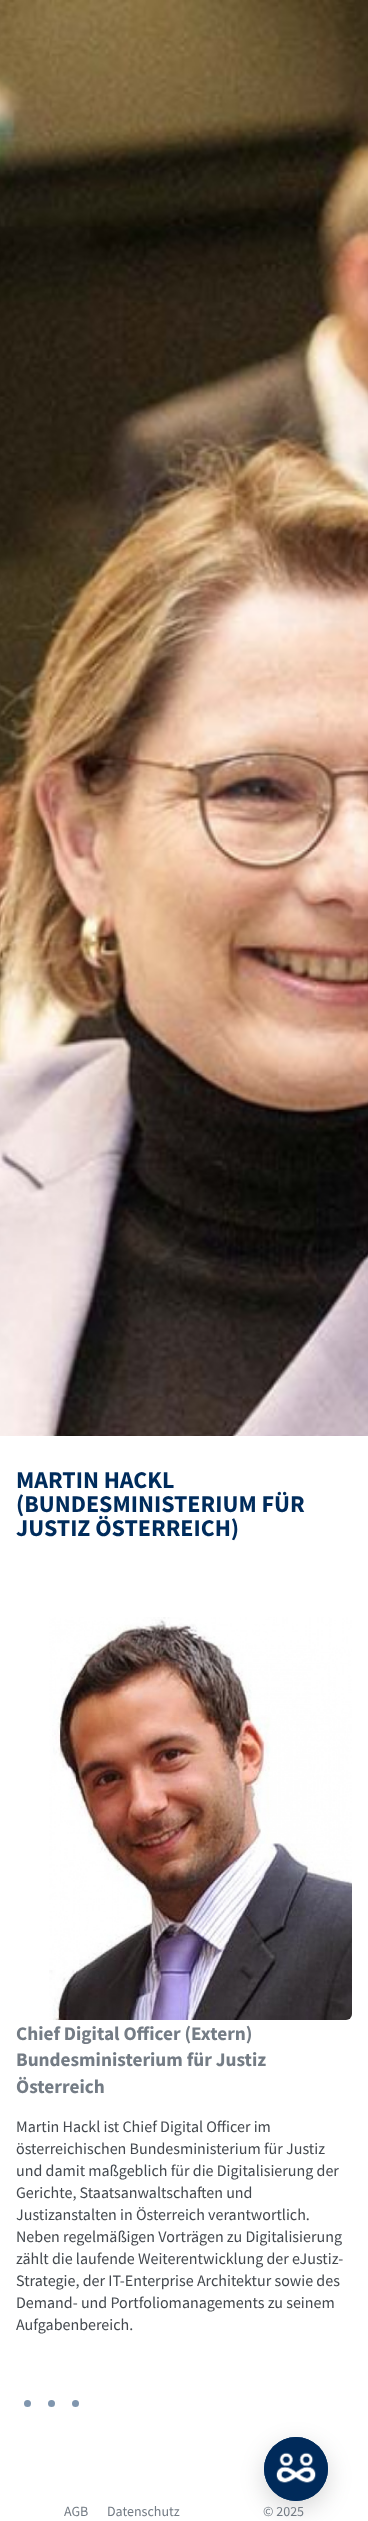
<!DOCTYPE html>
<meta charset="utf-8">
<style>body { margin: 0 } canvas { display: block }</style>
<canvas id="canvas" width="368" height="2521"></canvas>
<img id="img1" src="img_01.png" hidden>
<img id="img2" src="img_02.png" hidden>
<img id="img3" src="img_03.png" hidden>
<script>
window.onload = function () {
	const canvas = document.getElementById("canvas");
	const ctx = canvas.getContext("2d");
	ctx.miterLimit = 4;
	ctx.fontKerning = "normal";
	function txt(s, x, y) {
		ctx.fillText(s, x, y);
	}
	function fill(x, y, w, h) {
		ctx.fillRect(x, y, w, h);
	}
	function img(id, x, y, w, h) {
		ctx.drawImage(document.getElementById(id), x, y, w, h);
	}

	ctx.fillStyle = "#FFFFFF";
	fill(0, 0, 368, 2521);
	img("img1", 0, 0, 368, 1436);
	img("img2", 49, 1617, 303, 403);
	ctx.fillStyle = "#8096AE";
	ctx.beginPath();
	ctx.arc(27.5, 2403.5, 3.5, 0, Math.PI * 2);
	ctx.fill();
	ctx.beginPath();
	ctx.arc(51.5, 2403.5, 3.5, 0, Math.PI * 2);
	ctx.fill();
	ctx.beginPath();
	ctx.arc(75.5, 2403.5, 3.5, 0, Math.PI * 2);
	ctx.fill();
	ctx.fillStyle = "rgba(0, 0, 0, 0.16)";
	ctx.filter = "blur(12px)";
	ctx.beginPath();
	ctx.roundRect(264, 2445, 64, 64, 32);
	ctx.fill();
	ctx.filter = "none";
	img("img3", 264, 2437, 64, 64);
	ctx.beginPath();
	ctx.arc(296, 2469, 31.5, 0, Math.PI * 2);
	ctx.strokeStyle = "#002C5C";
	ctx.stroke();
	ctx.font = "bold 24px Source Sans Pro";
	ctx.fillStyle = "#002C5C";
	txt("MARTIN HACKL", 16, 1488);
	txt("(BUNDESMINISTERIUM FÜR", 16, 1512);
	txt("JUSTIZ ÖSTERREICH)", 16, 1536);
	ctx.font = "bold 19.25px Source Sans Pro";
	ctx.fillStyle = "#747C85";
	txt("Chief Digital Officer (Extern)", 16, 2040);
	txt("Bundesministerium für Justiz", 16, 2066);
	txt("Österreich", 16, 2093);
	ctx.font = "16px Source Sans Pro";
	ctx.fillStyle = "#44494F";
	txt("Martin Hackl ist Chief Digital Officer im", 16, 2132);
	txt("österreichischen Bundesministerium für Justiz", 16, 2154);
	txt("und damit maßgeblich für die Digitalisierung der", 16, 2176);
	txt("Gerichte, Staatsanwaltschaften und", 16, 2198);
	txt("Justizanstalten in Österreich verantwortlich.", 16, 2220);
	txt("Neben regelmäßigen Vorträgen zu Digitalisierung", 16, 2242);
	txt("zählt die laufende Weiterentwicklung der eJustiz-", 16, 2264);
	txt("Strategie, der IT-Enterprise Architektur sowie des", 16, 2286);
	txt("Demand- und Portfoliomanagements zu seinem", 16, 2308);
	txt("Aufgabenbereich.", 16, 2330);
	ctx.font = "14px Source Sans Pro";
	ctx.fillStyle = "#747C85";
	txt("AGB", 64, 2516);
	txt("Datenschutz", 107, 2516);
	txt("© 2025", 263, 2516);
};
</script>
